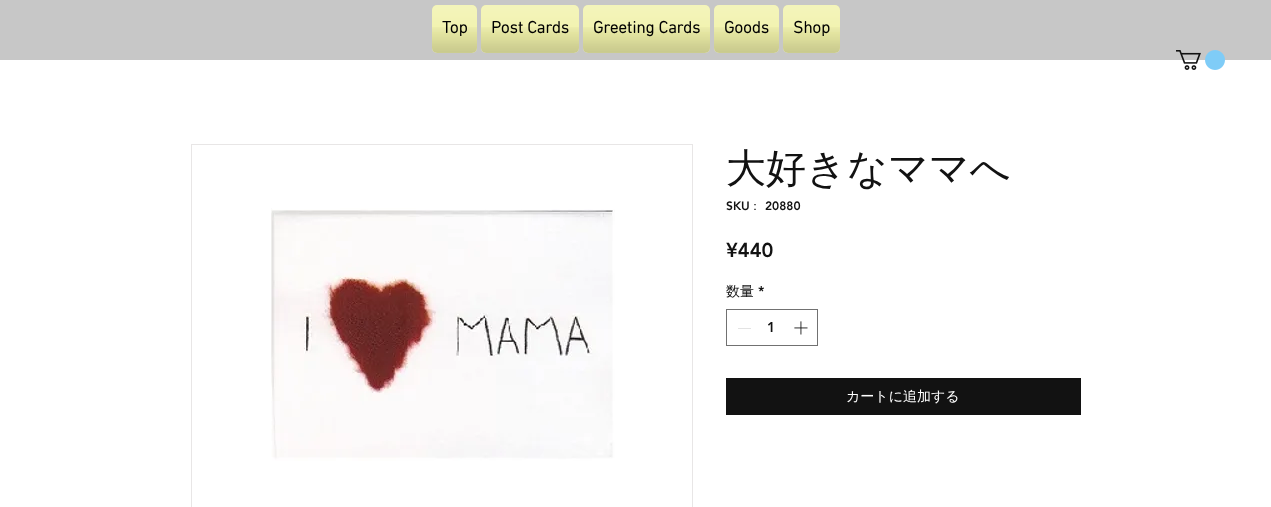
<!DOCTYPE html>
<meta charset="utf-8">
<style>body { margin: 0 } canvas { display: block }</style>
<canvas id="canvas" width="1271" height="507"></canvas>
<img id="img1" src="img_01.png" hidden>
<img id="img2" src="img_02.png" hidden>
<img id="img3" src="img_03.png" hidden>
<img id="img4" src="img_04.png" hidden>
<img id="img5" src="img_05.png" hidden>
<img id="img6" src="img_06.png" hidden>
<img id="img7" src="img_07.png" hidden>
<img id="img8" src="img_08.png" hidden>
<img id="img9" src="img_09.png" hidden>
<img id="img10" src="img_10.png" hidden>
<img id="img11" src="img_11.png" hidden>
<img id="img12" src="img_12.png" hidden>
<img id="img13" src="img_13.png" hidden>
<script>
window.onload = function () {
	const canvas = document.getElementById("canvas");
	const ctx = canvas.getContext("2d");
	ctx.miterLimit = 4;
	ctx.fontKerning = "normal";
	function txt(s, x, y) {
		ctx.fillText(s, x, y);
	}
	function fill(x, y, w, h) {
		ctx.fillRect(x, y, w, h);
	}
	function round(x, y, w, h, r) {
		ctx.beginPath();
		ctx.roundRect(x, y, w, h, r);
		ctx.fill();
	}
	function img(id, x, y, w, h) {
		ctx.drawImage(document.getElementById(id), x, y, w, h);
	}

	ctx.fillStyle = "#FFFFFF";
	fill(0, 0, 1271, 507);
	ctx.fillStyle = "#C7C7C7";
	fill(0, 0, 1271, 60);
	ctx.fillStyle = "#F1F2AA";
	round(432, 5, 45, 48, 5);
	img("img1", 432, 5, 45, 27);
	img("img2", 432, 27, 45, 26);
	round(481, 5, 98, 48, 5);
	img("img3", 481, 5, 98, 27);
	img("img4", 481, 27, 98, 26);
	round(583, 5, 127, 48, 5);
	img("img5", 583, 5, 127, 27);
	img("img6", 583, 27, 127, 26);
	round(714, 5, 65, 48, 5);
	img("img7", 714, 5, 65, 27);
	img("img8", 714, 27, 65, 26);
	round(783, 5, 57, 48, 5);
	img("img9", 783, 5, 57, 27);
	img("img10", 783, 27, 57, 26);
	img("img11", 1176, 50, 49, 20);
	ctx.strokeStyle = "#E8E6E6";
	ctx.strokeRect(191.5, 144.5, 501, 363);
	img("img12", 271, 208, 344, 253);
	ctx.strokeStyle = "#717171";
	ctx.strokeRect(726.5, 309.5, 91, 36);
	ctx.fillStyle = "#E3E3E3";
	fill(738, 328, 13, 1);
	img("img13", 794, 321, 14, 14);
	ctx.fillStyle = "#121212";
	fill(726, 378, 355, 37);
	ctx.font = "bold 17px 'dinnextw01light'";
	ctx.fillStyle = "#000000";
	txt("Top", 442, 33);
	txt("Post Cards", 491, 33);
	txt("Greeting Cards", 593, 33);
	txt("Goods", 724, 33);
	txt("Shop", 793, 33);
	ctx.font = "500 40px WenQuanYi Zen Hei";
	ctx.fillStyle = "#121212";
	txt("大好きなママへ", 726, 182);
	ctx.font = "900 12px 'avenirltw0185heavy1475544'";
	txt("SKU", 726, 210);
	ctx.font = "500 12px WenQuanYi Zen Hei";
	txt("：", 749, 210);
	ctx.font = "900 12px 'avenirltw0185heavy1475544'";
	txt("20880", 765, 210);
	ctx.font = "900 20px 'avenirltw0185heavy1475544'";
	txt("¥440", 726, 257);
	ctx.font = "500 14px WenQuanYi Zen Hei";
	txt("数量", 726, 296);
	ctx.font = "900 14px 'avenirltw0185heavy1475544'";
	txt("*", 758, 296);
	txt("1", 767, 332);
	ctx.font = "500 14px WenQuanYi Zen Hei";
	ctx.fillStyle = "#FFFFFF";
	txt("カートに追加する", 846, 401);
};
</script>
